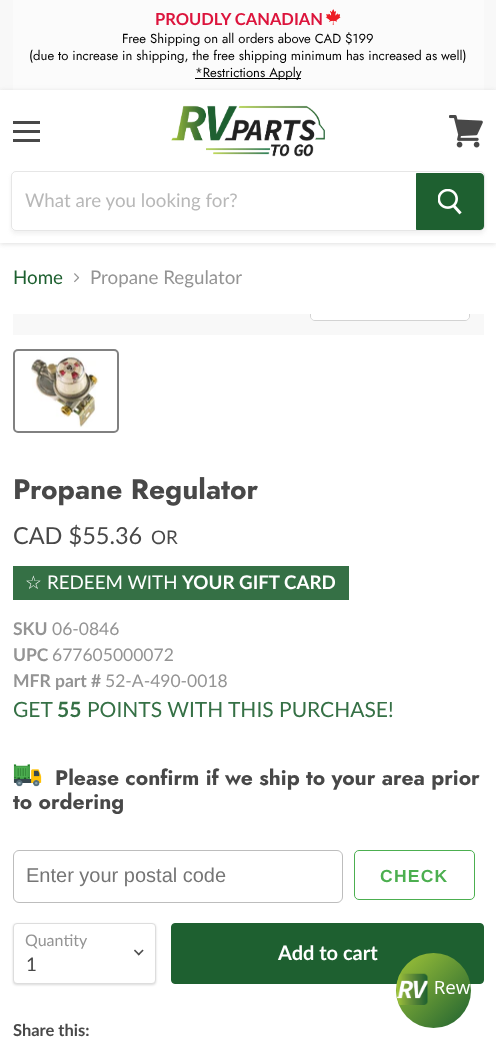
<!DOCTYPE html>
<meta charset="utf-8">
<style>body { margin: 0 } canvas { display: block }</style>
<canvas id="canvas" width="496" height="1052"></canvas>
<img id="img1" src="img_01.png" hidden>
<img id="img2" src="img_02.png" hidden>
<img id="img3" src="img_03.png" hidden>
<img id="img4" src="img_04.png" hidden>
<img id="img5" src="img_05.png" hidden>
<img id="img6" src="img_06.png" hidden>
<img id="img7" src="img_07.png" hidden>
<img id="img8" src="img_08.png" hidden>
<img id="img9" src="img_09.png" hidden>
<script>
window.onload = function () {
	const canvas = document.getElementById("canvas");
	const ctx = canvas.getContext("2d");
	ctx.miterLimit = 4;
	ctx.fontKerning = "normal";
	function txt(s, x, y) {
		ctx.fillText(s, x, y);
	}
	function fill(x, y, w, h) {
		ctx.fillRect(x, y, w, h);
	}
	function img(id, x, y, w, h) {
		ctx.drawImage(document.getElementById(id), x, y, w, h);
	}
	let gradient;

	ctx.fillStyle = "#FFFFFF";
	fill(0, 0, 496, 1052);
	ctx.fillStyle = "#F8F8F8";
	fill(0, 0, 496, 90);
	ctx.fillStyle = "#FBFBFB";
	fill(13, 0, 471, 90);
	img("img1", 325, 9, 16, 16);
	ctx.fillStyle = "#000000";
	fill(195, 78, 106, 1);
	ctx.fillStyle = "rgba(128, 128, 128, 0.25)";
	ctx.filter = "blur(2.5px)";
	ctx.beginPath();
	ctx.rect(0, 91, 496, 153);
	ctx.fill();
	ctx.filter = "none";
	ctx.fillStyle = "#FFFFFF";
	fill(0, 90, 496, 153);
	ctx.fillStyle = "#484848";
	fill(13, 121, 27, 3);
	fill(13, 130, 27, 3);
	fill(13, 139, 27, 3);
	img("img2", 449, 115, 34, 33);
	img("img3", 171, 105, 154, 52);
	ctx.save();
	ctx.beginPath();
	ctx.moveTo(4, 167);
	ctx.lineTo(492, 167);
	ctx.lineTo(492, 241);
	ctx.lineTo(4, 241);
	ctx.closePath();
	ctx.moveTo(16, 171);
	ctx.lineTo(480, 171);
	ctx.bezierCurveTo(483, 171, 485, 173, 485, 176);
	ctx.lineTo(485, 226);
	ctx.bezierCurveTo(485, 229, 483, 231, 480, 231);
	ctx.lineTo(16, 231);
	ctx.bezierCurveTo(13, 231, 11, 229, 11, 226);
	ctx.lineTo(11, 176);
	ctx.bezierCurveTo(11, 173, 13, 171, 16, 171);
	ctx.closePath();
	ctx.clip("evenodd");
	ctx.fillStyle = "rgba(128, 128, 128, 0.11)";
	ctx.filter = "blur(2px)";
	ctx.beginPath();
	ctx.roundRect(11, 174, 474, 60, 5);
	ctx.fill();
	ctx.filter = "none";
	ctx.restore();
	ctx.beginPath();
	ctx.roundRect(11.5, 171.5, 473, 59, 4.5);
	ctx.strokeStyle = "rgba(128, 128, 128, 0.2)";
	ctx.stroke();
	ctx.fillStyle = "#1E6030";
	ctx.beginPath();
	ctx.roundRect(416.5, 173.5, 67, 56, [0, 3.5, 3.5, 0]);
	ctx.fill();
	ctx.strokeStyle = "#1E6030";
	ctx.stroke();
	img("img4", 438, 189, 24, 26);
	img("img5", 74, 273, 6, 10);
	ctx.fillStyle = "#F8F8F8";
	fill(13, 314, 471, 21);
	ctx.save();
	ctx.beginPath();
	ctx.rect(13, 314, 471, 21);
	ctx.clip();
	ctx.beginPath();
	ctx.roundRect(310.5, 285.5, 159, 35, 4.5);
	ctx.strokeStyle = "#D3D3D3";
	ctx.stroke();
	ctx.restore();
	ctx.fillStyle = "rgba(255, 255, 255, 0.9)";
	ctx.beginPath();
	ctx.roundRect(311, 314, 158, 6, [0, 0, 4, 4]);
	ctx.fill();
	ctx.beginPath();
	ctx.roundRect(14, 350, 104, 82, 4);
	ctx.strokeStyle = "#818181";
	ctx.lineWidth = 2;
	ctx.stroke();
	img("img6", 31, 353, 68, 75);
	ctx.fillStyle = "#357045";
	fill(13, 566, 336, 34);
	img("img7", 13, 764, 29, 23);
	ctx.beginPath();
	ctx.roundRect(13.5, 850.5, 329, 52, 5.5);
	ctx.strokeStyle = "#BDBDBD";
	ctx.lineWidth = 1;
	ctx.stroke();
	ctx.beginPath();
	ctx.roundRect(354.5, 850.5, 120, 49, 4.5);
	ctx.strokeStyle = "#4CAF50";
	ctx.stroke();
	ctx.fillStyle = "rgba(0, 0, 0, 0.15)";
	ctx.filter = "blur(1px)";
	ctx.beginPath();
	ctx.roundRect(13, 924, 143, 61, 4);
	ctx.fill();
	ctx.filter = "none";
	ctx.fillStyle = "#FFFFFF";
	ctx.beginPath();
	ctx.roundRect(13.5, 923.5, 142, 60, 3.5);
	ctx.fill();
	ctx.strokeStyle = "#DDDDDD";
	ctx.stroke();
	img("img8", 134, 949, 10, 7);
	ctx.fillStyle = "#1E6030";
	ctx.beginPath();
	ctx.roundRect(171.5, 923.5, 312, 60, 3.5);
	ctx.fill();
	ctx.strokeStyle = "#1E6030";
	ctx.stroke();
	gradient = ctx.createLinearGradient(396, 953, 471, 1028);
	gradient.addColorStop(0, "#A1C538");
	gradient.addColorStop(1, "#1E6131");
	ctx.fillStyle = gradient;
	ctx.beginPath();
	ctx.arc(433.5, 990.5, 37.5, 0, Math.PI * 2);
	ctx.fill();
	img("img9", 396, 973, 74, 32);
	ctx.font = "bold 16.5px Lato";
	ctx.fillStyle = "#DC143C";
	txt("PROUDLY CANADIAN", 155, 25);
	ctx.font = "13.1px Jost";
	ctx.fillStyle = "#000000";
	txt("Free Shipping on all orders above CAD $199", 122, 43);
	txt("(due to increase in shipping, the free shipping minimum has increased as well)", 29, 60);
	txt("*Restrictions Apply", 195, 77);
	ctx.font = "18.75px Lato";
	ctx.fillStyle = "#B8B8B8";
	txt("What are you looking for?", 25, 207);
	ctx.fillStyle = "#1E6030";
	txt("Home", 13, 284);
	ctx.fillStyle = "#949494";
	txt("Propane Regulator", 90, 284);
	ctx.font = "bold 28.1px Jost";
	ctx.fillStyle = "#484848";
	txt("Propane Regulator", 13, 499);
	ctx.font = "23.5px Lato";
	txt("CAD $55.36", 13, 544);
	ctx.font = "18.75px Lato";
	txt("OR", 151, 544);
	ctx.font = "18.75px DejaVu Sans";
	ctx.fillStyle = "#FFFFFF";
	txt("☆", 25, 589);
	ctx.font = "18.75px Lato";
	txt("REDEEM WITH", 47, 589);
	ctx.font = "bold 18.75px Lato";
	txt("YOUR GIFT CARD", 182, 589);
	ctx.font = "bold 17.5px Lato";
	ctx.fillStyle = "#949494";
	txt("SKU", 13, 635);
	ctx.font = "17.5px Lato";
	txt("06-0846", 52, 635);
	ctx.font = "bold 17.5px Lato";
	txt("UPC", 13, 661);
	ctx.font = "17.5px Lato";
	txt("677605000072", 52, 661);
	ctx.font = "bold 17.5px Lato";
	txt("MFR part #", 13, 687);
	ctx.font = "17.5px Lato";
	txt("52-A-490-0018", 105, 687);
	ctx.font = "21px Lato";
	ctx.fillStyle = "#357045";
	txt("GET", 13, 717);
	ctx.font = "bold 21px Lato";
	txt("55", 57, 717);
	ctx.font = "21px Lato";
	txt("POINTS WITH THIS PURCHASE!", 87, 717);
	ctx.font = "bold 21.1px Jost";
	ctx.fillStyle = "#484848";
	txt("Please confirm if we ship to your area prior", 55, 785);
	txt("to ordering", 13, 809);
	ctx.font = "20px Liberation Sans";
	ctx.fillStyle = "#757575";
	txt("Enter your postal code", 26, 882);
	ctx.letterSpacing = "1.25px";
	ctx.font = "bold 17.5px Liberation Sans";
	ctx.fillStyle = "#4CAF50";
	txt("CHECK", 380, 882);
	ctx.letterSpacing = "0px";
	ctx.font = "16px Lato";
	ctx.fillStyle = "#949494";
	txt("Quantity", 25, 946);
	ctx.font = "18.75px Lato";
	ctx.fillStyle = "#484848";
	txt("1", 26, 971);
	ctx.font = "bold 20px Lato";
	ctx.fillStyle = "#FFFFFF";
	txt("Add to cart", 278, 960);
	ctx.font = "bold 16.5px Lato";
	ctx.fillStyle = "#484848";
	txt("Share this:", 13, 1036);
};
</script>
